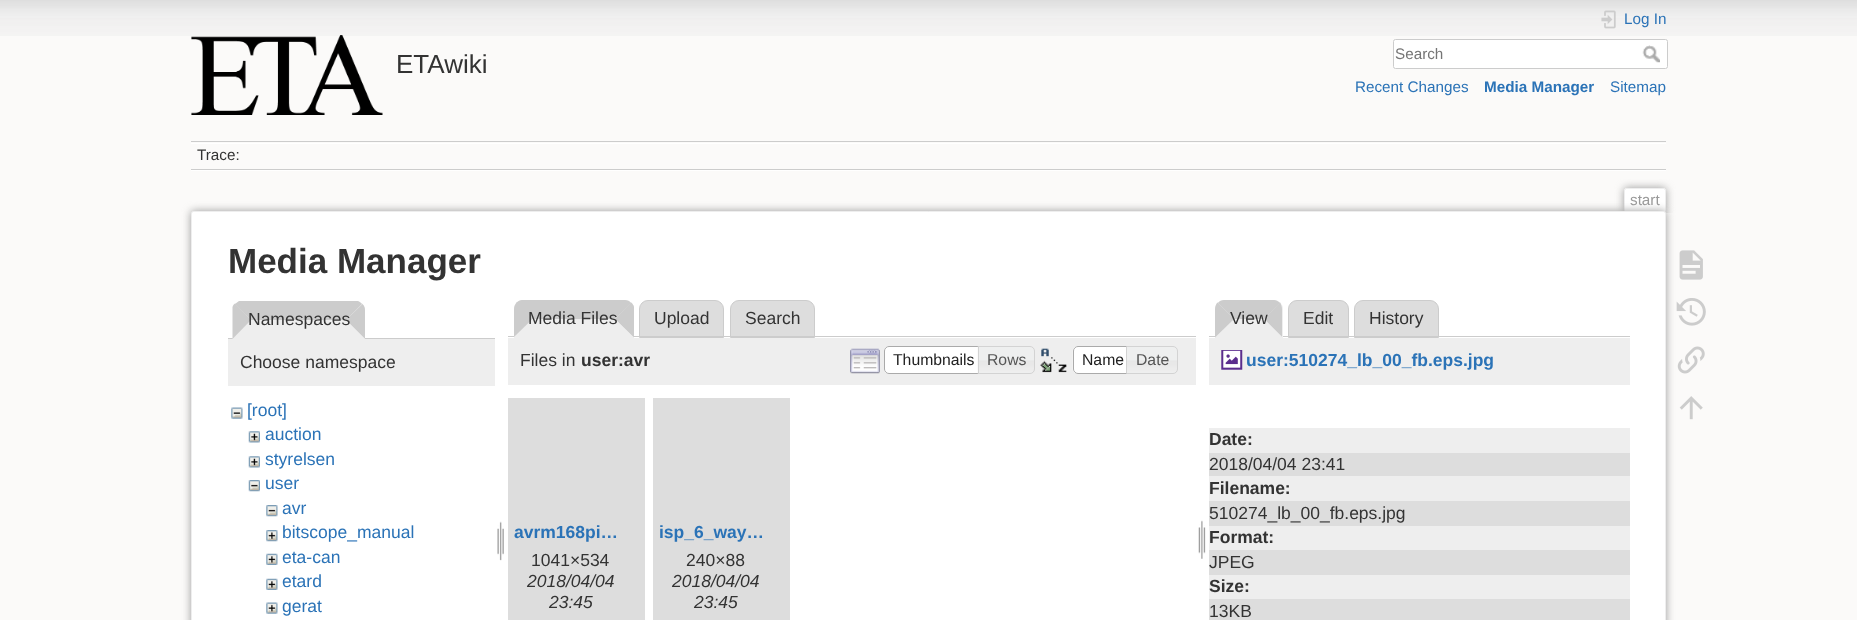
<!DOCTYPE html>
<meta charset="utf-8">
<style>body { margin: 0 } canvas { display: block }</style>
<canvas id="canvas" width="1857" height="620"></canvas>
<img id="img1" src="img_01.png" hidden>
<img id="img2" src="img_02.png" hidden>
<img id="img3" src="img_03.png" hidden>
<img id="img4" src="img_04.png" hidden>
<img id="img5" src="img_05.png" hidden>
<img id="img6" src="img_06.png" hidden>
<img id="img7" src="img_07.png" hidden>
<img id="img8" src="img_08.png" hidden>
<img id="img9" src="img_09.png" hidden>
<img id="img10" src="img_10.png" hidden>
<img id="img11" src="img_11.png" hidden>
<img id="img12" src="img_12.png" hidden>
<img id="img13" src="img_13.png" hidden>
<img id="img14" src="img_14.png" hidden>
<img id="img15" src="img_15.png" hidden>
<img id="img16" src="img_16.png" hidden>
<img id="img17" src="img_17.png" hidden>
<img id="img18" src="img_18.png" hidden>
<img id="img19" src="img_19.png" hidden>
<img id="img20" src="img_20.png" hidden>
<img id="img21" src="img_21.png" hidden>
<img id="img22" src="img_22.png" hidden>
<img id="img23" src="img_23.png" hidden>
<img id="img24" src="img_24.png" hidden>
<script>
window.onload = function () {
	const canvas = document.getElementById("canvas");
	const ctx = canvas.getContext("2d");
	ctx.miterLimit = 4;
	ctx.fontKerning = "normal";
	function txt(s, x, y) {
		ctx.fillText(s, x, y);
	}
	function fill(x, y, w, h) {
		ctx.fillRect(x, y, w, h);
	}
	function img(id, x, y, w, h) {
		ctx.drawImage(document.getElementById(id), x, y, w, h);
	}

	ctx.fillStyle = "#FBFAF9";
	fill(0, 0, 1857, 620);
	img("img1", 0, 0, 1857, 36);
	img("img2", 191, 35, 192, 80);
	img("img3", 1601, 10, 15, 19);
	ctx.fillStyle = "#FFFFFF";
	ctx.beginPath();
	ctx.roundRect(1393.5, 39.5, 274, 29, 2);
	ctx.fill();
	ctx.strokeStyle = "#CCCCCC";
	ctx.stroke();
	img("img4", 1642, 45, 18, 18);
	ctx.fillStyle = "#CCCCCC";
	fill(191, 141, 1475, 1);
	ctx.fillStyle = "#FFFFFF";
	fill(191, 170, 1475, 1);
	fill(191, 143, 1475, 1);
	ctx.fillStyle = "#CCCCCC";
	fill(191, 169, 1475, 1);
	ctx.save();
	ctx.beginPath();
	ctx.rect(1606, 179, 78, 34);
	ctx.clip();
	ctx.fillStyle = "#999999";
	ctx.filter = "blur(4px)";
	ctx.beginPath();
	ctx.roundRect(1624, 188, 42, 25, 2.5);
	ctx.fill();
	ctx.filter = "none";
	ctx.restore();
	ctx.fillStyle = "#FFFFFF";
	ctx.beginPath();
	ctx.roundRect(1625, 189, 40, 24, [1, 1, 0, 0]);
	ctx.fill();
	ctx.fillStyle = "#EEEEEE";
	fill(1625, 188, 40, 1);
	fill(1665, 189, 1, 24);
	fill(1624, 189, 1, 24);
	ctx.fillStyle = "#999999";
	ctx.filter = "blur(4.5px)";
	ctx.beginPath();
	ctx.roundRect(191, 211, 1475, 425, 2.5);
	ctx.fill();
	ctx.filter = "none";
	ctx.fillStyle = "#FFFFFF";
	ctx.beginPath();
	ctx.roundRect(191.5, 211.5, 1474, 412, 2);
	ctx.fill();
	ctx.strokeStyle = "#EEEEEE";
	ctx.stroke();
	ctx.fillStyle = "#CCCCCC";
	fill(228, 338, 267, 1);
	ctx.fillStyle = "#EEEEEE";
	ctx.beginPath();
	ctx.roundRect(233, 301, 132, 38, [9, 9, 0, 0]);
	ctx.fill();
	ctx.fillStyle = "#CCCCCC";
	ctx.beginPath();
	ctx.moveTo(358, 301);
	ctx.lineTo(239, 301);
	ctx.lineTo(235, 304);
	ctx.lineTo(251, 320);
	ctx.lineTo(346, 320);
	ctx.lineTo(362, 304);
	ctx.bezierCurveTo(361, 303, 360, 302, 358, 301);
	ctx.closePath();
	ctx.fill();
	ctx.beginPath();
	ctx.moveTo(362.5, 304);
	ctx.lineTo(346, 320);
	ctx.lineTo(365, 339);
	ctx.lineTo(365, 310);
	ctx.bezierCurveTo(365, 307.5, 364, 305.5, 362.5, 304);
	ctx.closePath();
	ctx.fill();
	ctx.fillStyle = "#EEEEEE";
	ctx.beginPath();
	ctx.moveTo(365, 339);
	ctx.lineTo(346, 320);
	ctx.lineTo(251, 320);
	ctx.lineTo(232, 339);
	ctx.closePath();
	ctx.fill();
	ctx.fillStyle = "#CCCCCC";
	ctx.beginPath();
	ctx.moveTo(232.5, 339);
	ctx.lineTo(251, 320);
	ctx.lineTo(235, 303.5);
	ctx.bezierCurveTo(233.5, 304.5, 233, 305.5, 232.5, 307);
	ctx.closePath();
	ctx.fill();
	ctx.fillStyle = "#EEEEEE";
	fill(228, 339, 267, 47);
	img("img5", 231, 407, 12, 12);
	img("img6", 248, 431, 12, 12);
	img("img6", 248, 456, 12, 12);
	img("img7", 248, 480, 12, 12);
	img("img8", 266, 505, 12, 12);
	img("img9", 266, 530, 12, 12);
	img("img10", 266, 553, 12, 12);
	img("img10", 266, 578, 12, 12);
	img("img11", 266, 602, 12, 12);
	img("img12", 497, 521, 7, 40);
	ctx.fillStyle = "#DDDDDD";
	ctx.beginPath();
	ctx.roundRect(639.5, 300.5, 84, 37, [8.5, 8.5, 0, 0]);
	ctx.fill();
	ctx.strokeStyle = "#CCCCCC";
	ctx.stroke();
	ctx.beginPath();
	ctx.roundRect(730.5, 300.5, 84, 37, [8.5, 8.5, 0, 0]);
	ctx.fill();
	ctx.stroke();
	ctx.fillStyle = "#CCCCCC";
	fill(508, 336, 688, 1);
	ctx.fillStyle = "#EEEEEE";
	ctx.beginPath();
	ctx.roundRect(514, 300, 120, 38, [9, 9, 0, 0]);
	ctx.fill();
	ctx.fillStyle = "#CCCCCC";
	ctx.beginPath();
	ctx.moveTo(522, 300);
	ctx.lineTo(625, 300);
	ctx.bezierCurveTo(627, 300, 630, 301, 631, 303);
	ctx.lineTo(615, 319);
	ctx.lineTo(532, 319);
	ctx.lineTo(516, 303);
	ctx.bezierCurveTo(518, 301, 520, 300, 522, 300);
	ctx.closePath();
	ctx.fill();
	ctx.beginPath();
	ctx.moveTo(631, 302.5);
	ctx.lineTo(615, 319);
	ctx.lineTo(634, 337.5);
	ctx.lineTo(634, 307);
	ctx.bezierCurveTo(633.5, 305, 632.5, 303.5, 631, 302.5);
	ctx.closePath();
	ctx.fill();
	ctx.fillStyle = "#EEEEEE";
	ctx.beginPath();
	ctx.moveTo(634, 338);
	ctx.lineTo(615, 319);
	ctx.lineTo(532, 319);
	ctx.lineTo(514, 338);
	ctx.closePath();
	ctx.fill();
	ctx.fillStyle = "#CCCCCC";
	ctx.beginPath();
	ctx.moveTo(516.5, 302.5);
	ctx.bezierCurveTo(515, 304.5, 514, 306.5, 514, 309);
	ctx.lineTo(514, 337);
	ctx.lineTo(532.5, 319);
	ctx.closePath();
	ctx.fill();
	ctx.fillStyle = "#EEEEEE";
	fill(508, 338, 688, 47);
	img("img13", 850, 348, 30, 26);
	ctx.fillStyle = "#FFFFFF";
	ctx.beginPath();
	ctx.roundRect(884, 346, 100, 28, [5, 0, 0, 5]);
	ctx.fill();
	img("img14", 884, 348, 2, 25);
	ctx.beginPath();
	ctx.roundRect(884.5, 346.5, 99, 27, [4.5, 0, 0, 4.5]);
	ctx.strokeStyle = "#AAAAAA";
	ctx.stroke();
	img("img15", 977, 346, 58, 28);
	ctx.beginPath();
	ctx.roundRect(978.5, 346.5, 56, 27, [0, 4.5, 4.5, 0]);
	ctx.strokeStyle = "#D3D3D3";
	ctx.stroke();
	img("img16", 1040, 348, 27, 25);
	ctx.beginPath();
	ctx.roundRect(1073, 346, 60, 28, [5, 0, 0, 5]);
	ctx.fill();
	img("img17", 1072, 347, 3, 26);
	ctx.beginPath();
	ctx.roundRect(1073.5, 346.5, 59, 27, [4.5, 0, 0, 4.5]);
	ctx.strokeStyle = "#AAAAAA";
	ctx.stroke();
	img("img18", 1127, 346, 50, 28);
	ctx.beginPath();
	ctx.roundRect(1126.5, 346.5, 51, 27, [0, 4.5, 4.5, 0]);
	ctx.strokeStyle = "#D3D3D3";
	ctx.stroke();
	ctx.fillStyle = "#DDDDDD";
	fill(508, 398, 137, 222);
	fill(653, 398, 137, 222);
	img("img19", 1198, 520, 8, 39);
	ctx.beginPath();
	ctx.roundRect(1288.5, 300.5, 60, 37, [8.5, 8.5, 0, 0]);
	ctx.fill();
	ctx.strokeStyle = "#CCCCCC";
	ctx.stroke();
	ctx.beginPath();
	ctx.roundRect(1354.5, 300.5, 84, 37, [8.5, 8.5, 0, 0]);
	ctx.fill();
	ctx.stroke();
	ctx.fillStyle = "#CCCCCC";
	fill(1209, 336, 421, 1);
	ctx.fillStyle = "#EEEEEE";
	ctx.beginPath();
	ctx.roundRect(1215, 300, 68, 38, [9, 9, 0, 0]);
	ctx.fill();
	ctx.fillStyle = "#CCCCCC";
	ctx.beginPath();
	ctx.moveTo(1224, 300);
	ctx.lineTo(1274, 300);
	ctx.bezierCurveTo(1276, 300, 1278, 301, 1280, 303);
	ctx.lineTo(1264, 319);
	ctx.lineTo(1234, 319);
	ctx.lineTo(1218, 303);
	ctx.bezierCurveTo(1219, 301, 1222, 300, 1224, 300);
	ctx.closePath();
	ctx.fill();
	ctx.beginPath();
	ctx.moveTo(1280, 302.5);
	ctx.lineTo(1264, 319);
	ctx.lineTo(1282, 337);
	ctx.lineTo(1282, 309);
	ctx.bezierCurveTo(1282, 306.5, 1281, 304, 1280, 302.5);
	ctx.closePath();
	ctx.fill();
	ctx.fillStyle = "#EEEEEE";
	ctx.beginPath();
	ctx.moveTo(1282, 337);
	ctx.lineTo(1264, 319);
	ctx.lineTo(1234, 319);
	ctx.lineTo(1215, 338);
	ctx.lineTo(1282, 338);
	ctx.closePath();
	ctx.fill();
	ctx.fillStyle = "#CCCCCC";
	ctx.beginPath();
	ctx.moveTo(1215, 337.5);
	ctx.lineTo(1234, 319);
	ctx.lineTo(1217.5, 302.5);
	ctx.bezierCurveTo(1216, 304, 1215, 306.5, 1215, 309);
	ctx.closePath();
	ctx.fill();
	ctx.fillStyle = "#EEEEEE";
	fill(1209, 338, 421, 47);
	img("img20", 1221, 350, 22, 20);
	fill(1209, 428, 421, 25);
	ctx.fillStyle = "#DDDDDD";
	fill(1209, 453, 421, 23);
	ctx.fillStyle = "#EEEEEE";
	fill(1209, 476, 421, 25);
	ctx.fillStyle = "#DDDDDD";
	fill(1209, 501, 421, 25);
	ctx.fillStyle = "#EEEEEE";
	fill(1209, 526, 421, 24);
	ctx.fillStyle = "#DDDDDD";
	fill(1209, 550, 421, 25);
	ctx.fillStyle = "#EEEEEE";
	fill(1209, 575, 421, 24);
	ctx.fillStyle = "#DDDDDD";
	fill(1209, 599, 421, 21);
	img("img21", 1679, 250, 24, 30);
	img("img22", 1676, 298, 30, 28);
	img("img23", 1677, 346, 28, 28);
	img("img24", 1679, 396, 24, 24);
	ctx.font = "26px Liberation Sans";
	ctx.fillStyle = "#333333";
	txt("ETAwiki", 396, 73);
	ctx.font = "15.25px Liberation Sans";
	ctx.fillStyle = "#2B73B7";
	txt("Log In", 1624, 24);
	ctx.fillStyle = "#757575";
	txt("Search", 1395, 59);
	ctx.fillStyle = "#2B73B7";
	txt("Recent Changes", 1355, 92);
	ctx.font = "bold 15.25px Liberation Sans";
	txt("Media Manager", 1484, 92);
	ctx.font = "15.25px Liberation Sans";
	txt("Sitemap", 1610, 92);
	ctx.fillStyle = "#333333";
	txt("Trace:", 197, 160);
	ctx.fillStyle = "#999999";
	txt("start", 1630, 205);
	ctx.font = "bold 35px Liberation Sans";
	ctx.fillStyle = "#333333";
	txt("Media Manager", 228, 273);
	ctx.font = "17.5px Liberation Sans";
	txt("Namespaces", 248, 325);
	txt("Choose namespace", 240, 368);
	ctx.fillStyle = "#2B73B7";
	txt("[root]", 247, 416);
	txt("auction", 265, 440);
	txt("styrelsen", 265, 465);
	txt("user", 265, 489);
	txt("avr", 282, 514);
	txt("bitscope_manual", 282, 538);
	txt("eta-can", 282, 563);
	txt("etard", 282, 587);
	txt("gerat", 282, 612);
	ctx.fillStyle = "#333333";
	txt("Media Files", 528, 324);
	txt("Upload", 654, 324);
	txt("Search", 745, 324);
	txt("Files in", 520, 366);
	ctx.font = "bold 17.5px Liberation Sans";
	txt("user:avr", 581, 366);
	ctx.font = "15.75px Liberation Sans";
	ctx.fillStyle = "#212121";
	txt("Thumbnails", 893, 365);
	ctx.fillStyle = "#555555";
	txt("Rows", 987, 365);
	ctx.fillStyle = "#212121";
	txt("Name", 1082, 365);
	ctx.fillStyle = "#555555";
	txt("Date", 1136, 365);
	ctx.font = "bold 17.5px Liberation Sans";
	ctx.fillStyle = "#2B73B7";
	txt("avrm168pi…", 514, 538);
	ctx.font = "17.5px Liberation Sans";
	ctx.fillStyle = "#333333";
	txt("1041×534", 531, 566);
	ctx.font = "italic 17.5px Liberation Sans";
	txt("2018/04/04", 527, 587);
	txt("23:45", 549, 608);
	ctx.font = "bold 17.5px Liberation Sans";
	ctx.fillStyle = "#2B73B7";
	txt("isp_6_way…", 659, 538);
	ctx.font = "17.5px Liberation Sans";
	ctx.fillStyle = "#333333";
	txt("240×88", 686, 566);
	ctx.font = "italic 17.5px Liberation Sans";
	txt("2018/04/04", 672, 587);
	txt("23:45", 694, 608);
	ctx.font = "17.5px Liberation Sans";
	txt("View", 1230, 324);
	txt("Edit", 1303, 324);
	txt("History", 1369, 324);
	ctx.font = "bold 17.5px Liberation Sans";
	ctx.fillStyle = "#2B73B7";
	txt("user:510274_lb_00_fb.eps.jpg", 1246, 366);
	ctx.fillStyle = "#333333";
	txt("Date:", 1209, 445);
	ctx.font = "17.5px Liberation Sans";
	txt("2018/04/04 23:41", 1209, 470);
	ctx.font = "bold 17.5px Liberation Sans";
	txt("Filename:", 1209, 494);
	ctx.font = "17.5px Liberation Sans";
	txt("510274_lb_00_fb.eps.jpg", 1209, 519);
	ctx.font = "bold 17.5px Liberation Sans";
	txt("Format:", 1209, 543);
	ctx.font = "17.5px Liberation Sans";
	txt("JPEG", 1209, 568);
	ctx.font = "bold 17.5px Liberation Sans";
	txt("Size:", 1209, 592);
	ctx.font = "17.5px Liberation Sans";
	txt("13KB", 1209, 617);
};
</script>
